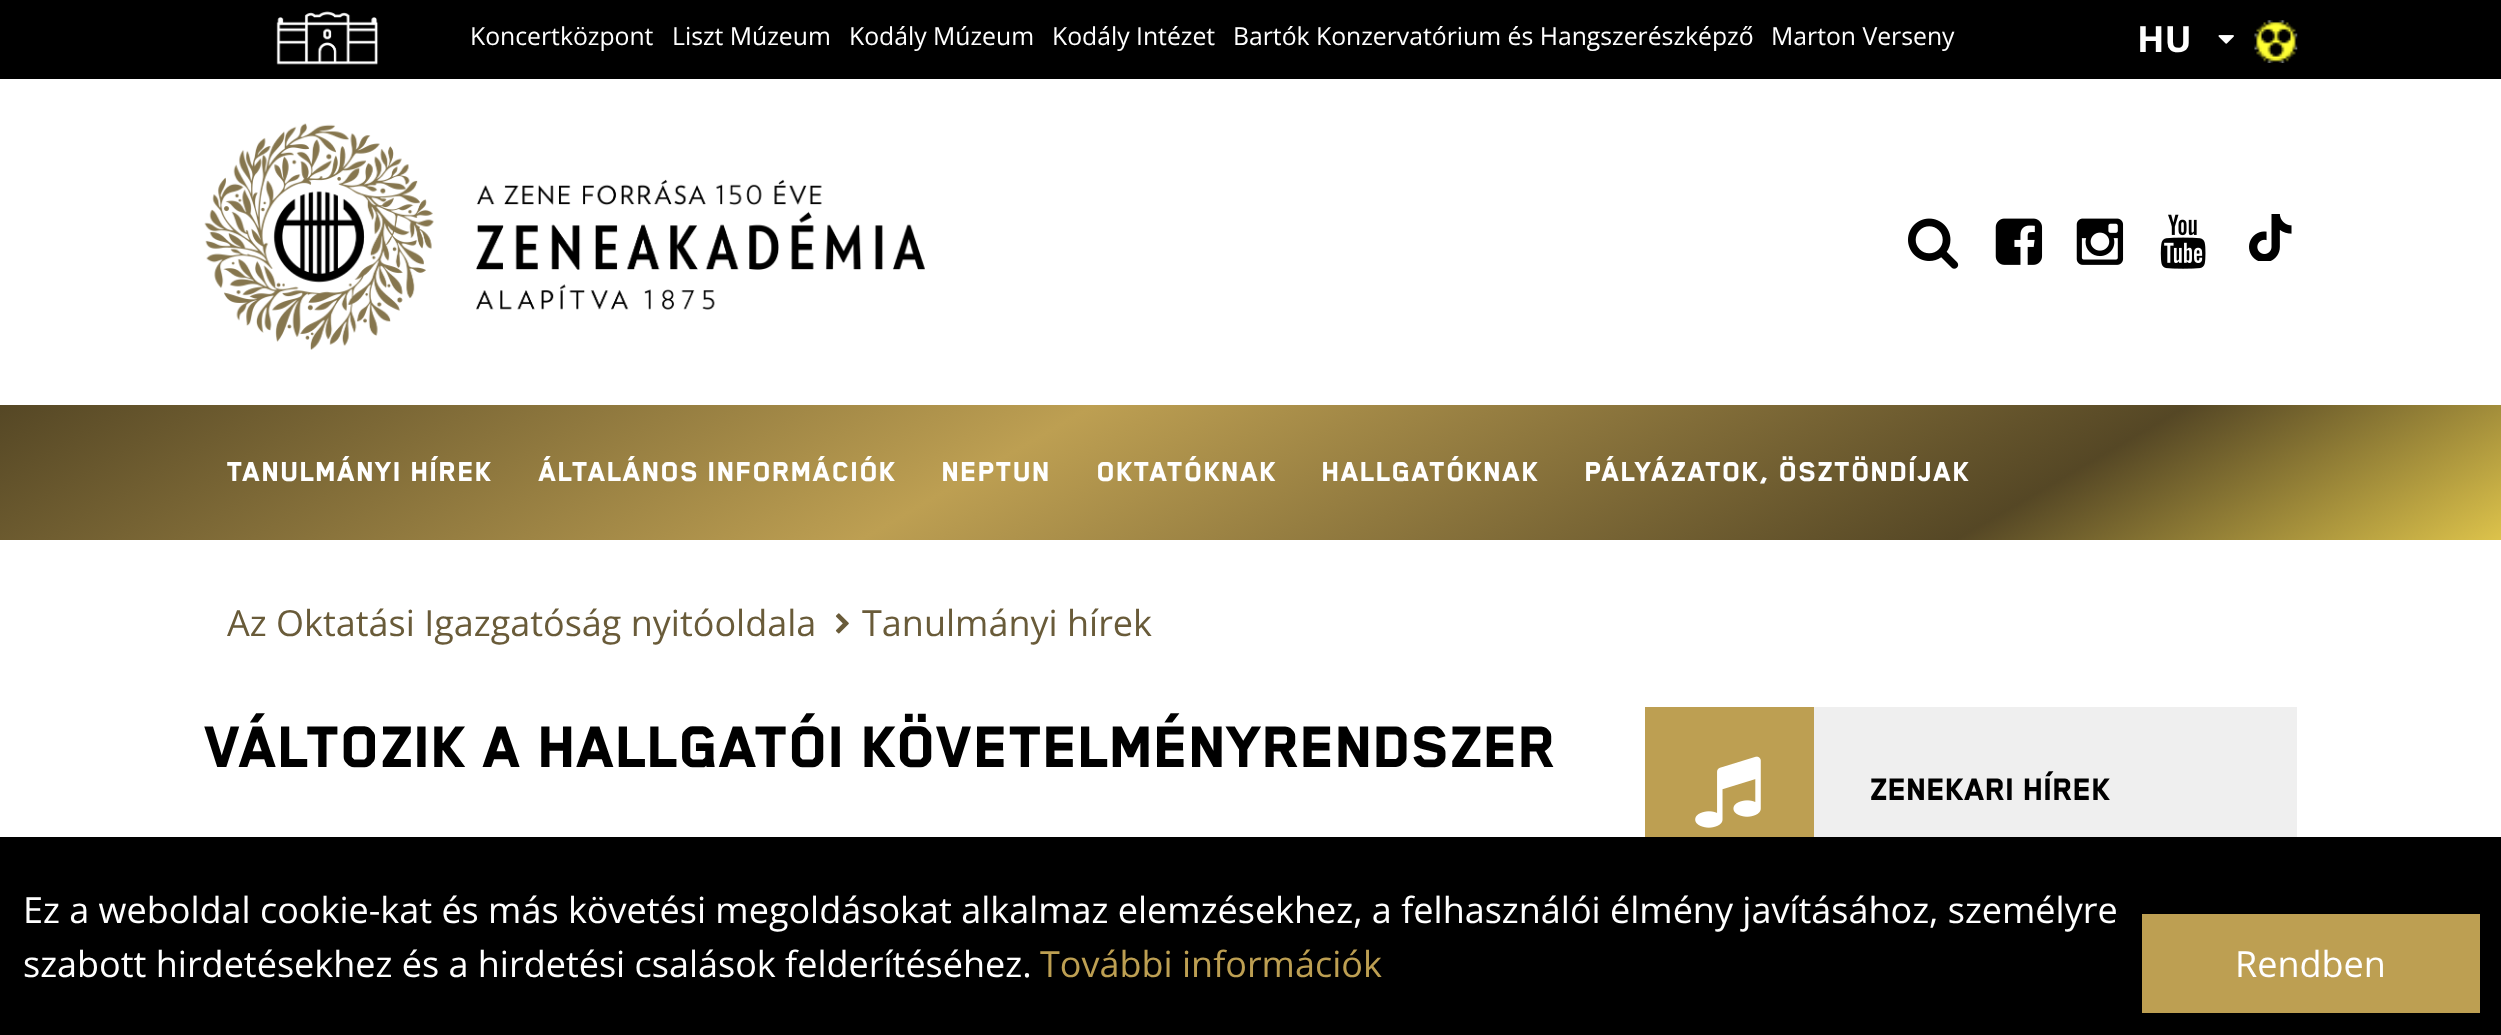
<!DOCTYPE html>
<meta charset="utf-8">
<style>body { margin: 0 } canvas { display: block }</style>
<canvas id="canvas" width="2501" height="1035"></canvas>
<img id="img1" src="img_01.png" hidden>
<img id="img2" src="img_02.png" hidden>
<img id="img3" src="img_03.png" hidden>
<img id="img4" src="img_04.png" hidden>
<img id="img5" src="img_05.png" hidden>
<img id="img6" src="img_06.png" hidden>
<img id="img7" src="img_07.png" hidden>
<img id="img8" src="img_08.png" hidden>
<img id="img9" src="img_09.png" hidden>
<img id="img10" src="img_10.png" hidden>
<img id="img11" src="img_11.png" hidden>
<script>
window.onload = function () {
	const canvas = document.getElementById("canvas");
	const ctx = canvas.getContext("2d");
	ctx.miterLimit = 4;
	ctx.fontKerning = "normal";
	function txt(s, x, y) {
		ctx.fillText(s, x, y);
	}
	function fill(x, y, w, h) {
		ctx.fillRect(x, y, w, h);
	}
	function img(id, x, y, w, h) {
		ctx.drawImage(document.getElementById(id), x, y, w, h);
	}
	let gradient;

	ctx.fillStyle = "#FFFFFF";
	fill(0, 0, 2501, 1035);
	ctx.fillStyle = "#000000";
	fill(0, 0, 2501, 79);
	img("img1", 276, 11, 103, 54);
	img("img2", 2218, 35, 16, 9);
	img("img3", 2254, 20, 44, 43);
	img("img4", 204, 123, 721, 227);
	img("img5", 1908, 218, 51, 51);
	img("img6", 1995, 218, 48, 47);
	img("img7", 2076, 218, 48, 47);
	img("img8", 2160, 214, 46, 55);
	img("img9", 2249, 214, 43, 47);
	gradient = ctx.createLinearGradient(909, -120, 1593, 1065);
	gradient.addColorStop(0, "#554725");
	gradient.addColorStop(0.4, "#BD9F52");
	gradient.addColorStop(0.8, "#554725");
	gradient.addColorStop(1, "#DDC34B");
	ctx.fillStyle = gradient;
	fill(0, 405, 2501, 135);
	img("img10", 835, 613, 14, 21);
	ctx.fillStyle = "#EFEFEF";
	fill(1814, 707, 483, 130);
	ctx.fillStyle = "#BD9F52";
	fill(1645, 707, 169, 130);
	img("img11", 1695, 756, 66, 72);
	ctx.fillStyle = "#000000";
	fill(0, 837, 2501, 198);
	ctx.fillStyle = "#BD9F52";
	fill(2142, 914, 338, 99);
	ctx.font = "24.75px Open Sans";
	ctx.fillStyle = "#FFFFFF";
	txt("Koncertközpont", 470, 45);
	txt("Liszt Múzeum", 672, 45);
	txt("Kodály Múzeum", 849, 45);
	txt("Kodály Intézet", 1052, 45);
	txt("Bartók Konzervatórium és Hangszerészképző", 1233, 45);
	txt("Marton Verseny", 1771, 45);
	ctx.font = "bold 36px Open Sans";
	txt("HU", 2137, 52);
	ctx.letterSpacing = "1.1px";
	ctx.font = "900 31.5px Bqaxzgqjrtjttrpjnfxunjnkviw";
	txt("TANULMÁNYI HÍREK", 227, 481);
	txt("ÁLTALÁNOS INFORMÁCIÓK", 539, 481);
	txt("NEPTUN", 942, 481);
	txt("OKTATÓKNAK", 1097, 481);
	txt("HALLGATÓKNAK", 1322, 481);
	txt("PÁLYÁZATOK, ÖSZTÖNDÍJAK", 1585, 481);
	ctx.letterSpacing = "0px";
	ctx.font = "36px Open Sans";
	ctx.fillStyle = "#695B39";
	txt("Az Oktatási Igazgatóság nyitóoldala", 227, 636);
	txt("Tanulmányi hírek", 862, 636);
	ctx.font = "900 67.5px Bqaxzgqjrtjttrpjnfxunjnkviw";
	ctx.fillStyle = "#000000";
	txt("VÁLTOZIK A HALLGATÓI KÖVETELMÉNYRENDSZER", 205, 767);
	ctx.font = "900 36px Bqaxzgqjrtjttrpjnfxunjnkviw";
	txt("ZENEKARI HÍREK", 1870, 800);
	ctx.font = "36px Open Sans";
	ctx.fillStyle = "#FFFFFF";
	txt("Ez a weboldal cookie-kat és más követési megoldásokat alkalmaz elemzésekhez, a felhasználói élmény javításához, személyre", 23, 923);
	txt("szabott hirdetésekhez és a hirdetési csalások felderítéséhez.", 23, 977);
	ctx.fillStyle = "#BD9F52";
	txt("További információk", 1040, 977);
	ctx.fillStyle = "#FFFFFF";
	txt("Rendben", 2235, 977);
};
</script>
